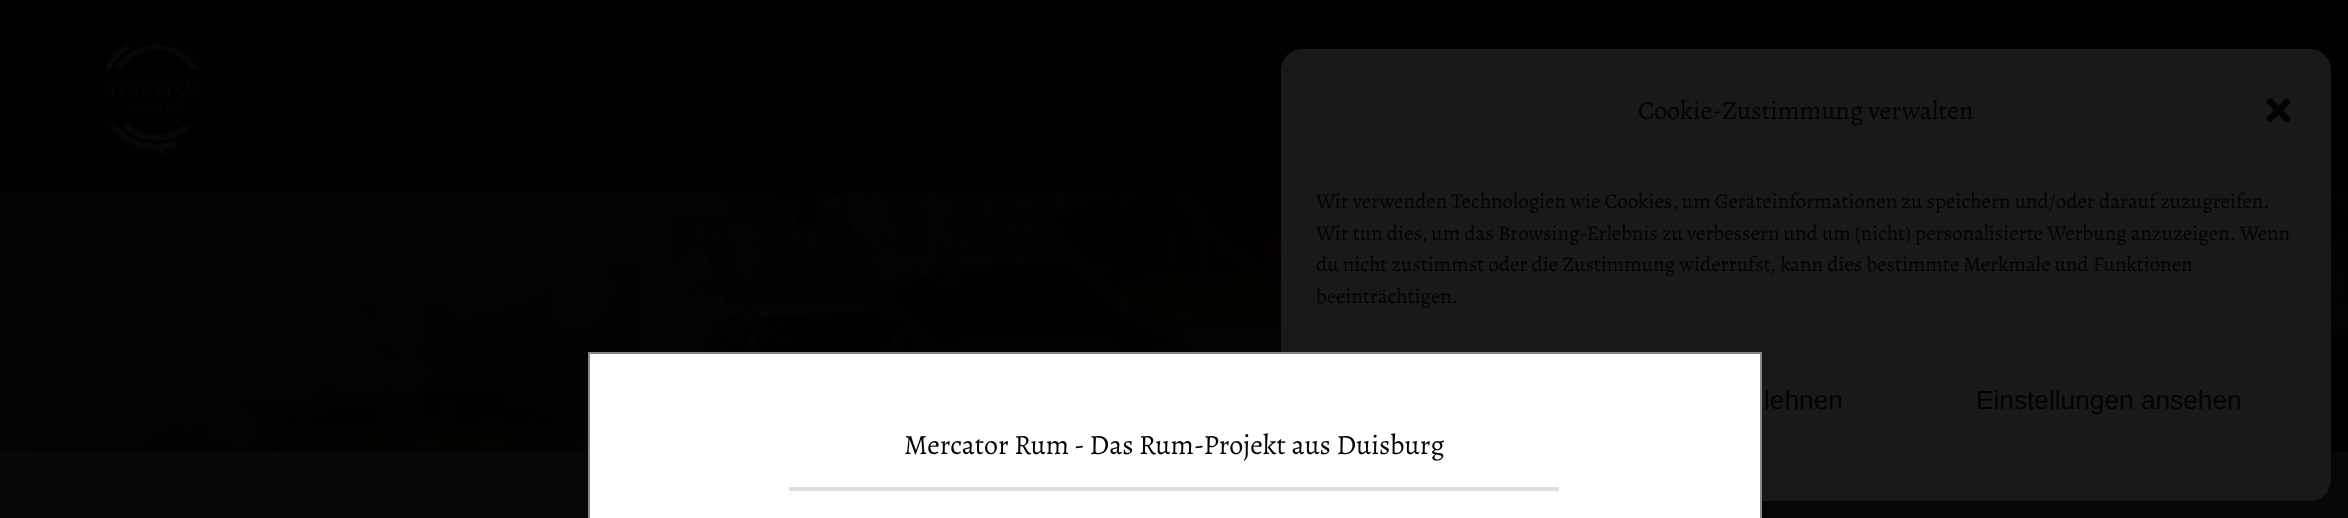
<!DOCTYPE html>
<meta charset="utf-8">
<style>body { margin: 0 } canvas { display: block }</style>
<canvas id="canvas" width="2348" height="518"></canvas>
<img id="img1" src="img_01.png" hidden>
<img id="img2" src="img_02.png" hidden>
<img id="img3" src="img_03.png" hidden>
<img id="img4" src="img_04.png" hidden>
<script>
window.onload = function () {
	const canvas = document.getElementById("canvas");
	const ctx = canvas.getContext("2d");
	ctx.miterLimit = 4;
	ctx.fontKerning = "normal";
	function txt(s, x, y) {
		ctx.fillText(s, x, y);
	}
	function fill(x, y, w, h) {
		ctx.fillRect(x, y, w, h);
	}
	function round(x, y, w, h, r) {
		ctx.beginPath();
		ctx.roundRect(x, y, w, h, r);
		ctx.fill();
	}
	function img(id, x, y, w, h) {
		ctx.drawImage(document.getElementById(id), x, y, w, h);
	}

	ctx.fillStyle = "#020304";
	fill(0, 0, 2348, 518);
	ctx.fillStyle = "#010101";
	fill(0, 0, 2348, 193);
	img("img1", 103, 44, 99, 111);
	img("img2", 0, 193, 2348, 259);
	ctx.fillStyle = "#070708";
	fill(0, 452, 2348, 66);
	ctx.fillStyle = "#191919";
	round(1281, 49, 1050, 452, 21);
	img("img3", 1321, 81, 53, 62);
	img("img4", 2266, 98, 25, 25);
	ctx.fillStyle = "#FFFFFF";
	ctx.beginPath();
	ctx.rect(589, 353, 1172, 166);
	ctx.fill();
	ctx.strokeStyle = "#888888";
	ctx.lineWidth = 2;
	ctx.stroke();
	ctx.fillStyle = "#DDDDDD";
	fill(789, 487, 770, 4);
	ctx.font = "26.25px Alegreya";
	ctx.fillStyle = "#030303";
	txt("Cookie-Zustimmung verwalten", 1638, 119);
	ctx.font = "21px Alegreya";
	txt("Wir verwenden Technologien wie Cookies, um Geräteinformationen zu speichern und/oder darauf zuzugreifen.", 1316, 208);
	txt("Wir tun dies, um das Browsing-Erlebnis zu verbessern und um (nicht) personalisierte Werbung anzuzeigen. Wenn", 1316, 240);
	txt("du nicht zustimmst oder die Zustimmung widerrufst, kann dies bestimmte Merkmale und Funktionen", 1316, 271);
	txt("beeinträchtigen.", 1316, 303);
	ctx.font = "26.25px Liberation Sans";
	txt("lehnen", 1764, 409);
	txt("Einstellungen ansehen", 1976, 409);
	ctx.font = "28px Alegreya";
	txt("Mercator Rum - Das Rum-Projekt aus Duisburg", 904, 454);
};
</script>
